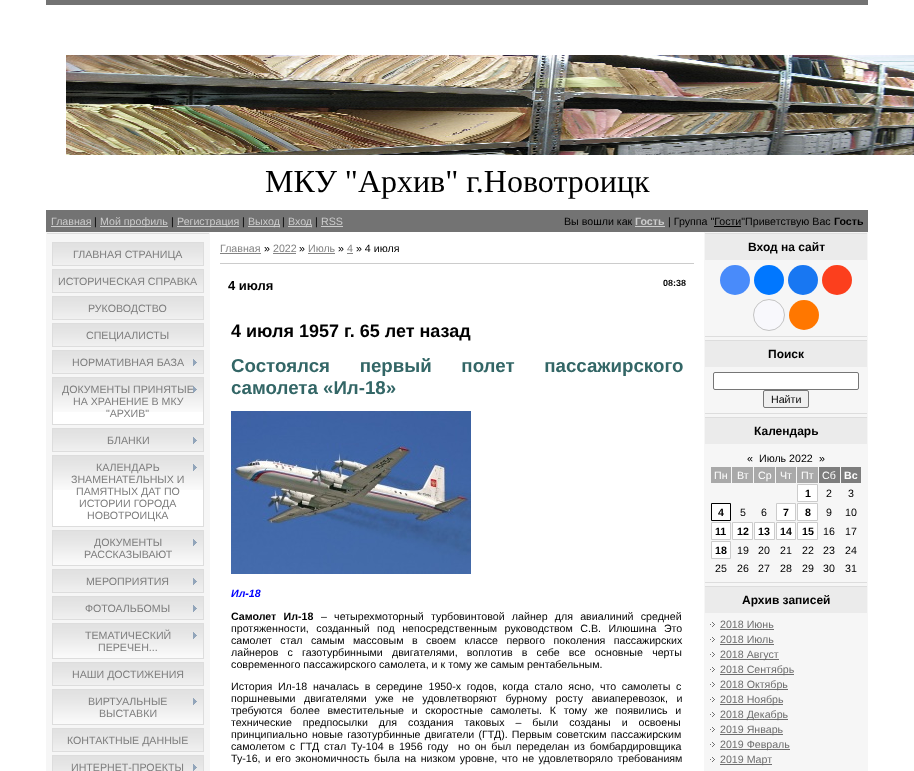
<!DOCTYPE html>
<meta charset="utf-8">
<style>body { margin: 0 } canvas { display: block }</style>
<canvas id="canvas" width="914" height="771"></canvas>
<img id="img1" src="img_01.png" hidden>
<img id="img2" src="img_02.png" hidden>
<img id="img3" src="img_03.png" hidden>
<img id="img4" src="img_04.png" hidden>
<img id="img5" src="img_05.png" hidden>
<img id="img6" src="img_06.png" hidden>
<img id="img7" src="img_07.png" hidden>
<script>
window.onload = function () {
	const canvas = document.getElementById("canvas");
	const ctx = canvas.getContext("2d");
	ctx.miterLimit = 4;
	ctx.fontKerning = "normal";
	function txt(s, x, y) {
		ctx.fillText(s, x, y);
	}
	function fill(x, y, w, h) {
		ctx.fillRect(x, y, w, h);
	}
	function img(id, x, y, w, h) {
		ctx.drawImage(document.getElementById(id), x, y, w, h);
	}

	ctx.fillStyle = "#FFFFFF";
	fill(0, 0, 914, 771);
	ctx.fillStyle = "#737373";
	fill(46, 0, 822, 5);
	img("img1", 66, 55, 848, 100);
	fill(46, 210, 822, 22);
	ctx.fillStyle = "#CCCCCC";
	fill(51, 226, 40, 1);
	fill(100, 226, 68, 1);
	fill(177, 226, 62, 1);
	fill(248, 226, 32, 1);
	fill(288, 226, 24, 1);
	fill(321, 226, 22, 1);
	fill(635, 226, 30, 1);
	ctx.fillStyle = "#000000";
	fill(714, 226, 27, 1);
	ctx.fillStyle = "#F6F6F6";
	fill(46, 232, 164, 539);
	ctx.fillStyle = "#DDDDDD";
	fill(47, 233, 162, 1);
	img("img2", 53, 243, 150, 22);
	ctx.strokeStyle = "#DDDDDD";
	ctx.strokeRect(52.5, 242.5, 151, 23);
	img("img2", 53, 270, 150, 22);
	ctx.strokeRect(52.5, 269.5, 151, 23);
	img("img2", 53, 297, 150, 22);
	ctx.strokeRect(52.5, 296.5, 151, 23);
	img("img2", 53, 324, 150, 22);
	ctx.strokeRect(52.5, 323.5, 151, 23);
	img("img2", 53, 351, 150, 22);
	ctx.strokeRect(52.5, 350.5, 151, 23);
	img("img3", 193, 359, 4, 7);
	ctx.fillStyle = "#FFFFFF";
	fill(53, 412, 150, 12);
	img("img4", 53, 378, 150, 34);
	ctx.strokeRect(52.5, 377.5, 151, 47);
	img("img2", 53, 429, 150, 22);
	ctx.strokeRect(52.5, 428.5, 151, 23);
	img("img3", 193, 437, 4, 7);
	fill(53, 490, 150, 36);
	img("img4", 53, 456, 150, 34);
	ctx.strokeRect(52.5, 455.5, 151, 71);
	img("img3", 193, 464, 4, 7);
	img("img4", 53, 531, 150, 34);
	ctx.strokeRect(52.5, 530.5, 151, 35);
	img("img3", 193, 539, 4, 7);
	img("img2", 53, 570, 150, 22);
	ctx.strokeRect(52.5, 569.5, 151, 23);
	img("img3", 193, 578, 4, 7);
	img("img2", 53, 597, 150, 22);
	ctx.strokeRect(52.5, 596.5, 151, 23);
	img("img3", 193, 605, 4, 7);
	img("img4", 53, 624, 150, 34);
	ctx.strokeRect(52.5, 623.5, 151, 35);
	img("img3", 193, 632, 4, 7);
	img("img2", 53, 663, 150, 22);
	ctx.strokeRect(52.5, 662.5, 151, 23);
	img("img4", 53, 690, 150, 34);
	ctx.strokeRect(52.5, 689.5, 151, 35);
	img("img3", 193, 698, 4, 7);
	img("img2", 53, 729, 150, 22);
	ctx.strokeRect(52.5, 728.5, 151, 23);
	img("img5", 53, 756, 150, 15);
	ctx.strokeRect(52.5, 755.5, 151, 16);
	img("img3", 193, 764, 4, 7);
	ctx.fillStyle = "#838383";
	fill(220, 253, 41, 1);
	fill(273, 253, 23, 1);
	fill(308, 253, 27, 1);
	fill(347, 253, 6, 1);
	ctx.fillStyle = "#CCCCCC";
	fill(220, 263, 474, 1);
	img("img6", 231, 411, 240, 163);
	ctx.fillStyle = "#F6F6F6";
	fill(704, 232, 164, 539);
	ctx.fillStyle = "#DDDDDD";
	fill(705, 233, 162, 1);
	fill(705, 336, 162, 1);
	ctx.fillStyle = "#EBEBEB";
	fill(705, 234, 162, 26);
	ctx.fillStyle = "#498BFA";
	ctx.beginPath();
	ctx.arc(735, 280, 15, 0, Math.PI * 2);
	ctx.fill();
	ctx.fillStyle = "#0077FF";
	ctx.beginPath();
	ctx.arc(769, 280, 15, 0, Math.PI * 2);
	ctx.fill();
	ctx.fillStyle = "#1877F2";
	ctx.beginPath();
	ctx.arc(803, 280, 15, 0, Math.PI * 2);
	ctx.fill();
	ctx.fillStyle = "#FC3F1D";
	ctx.beginPath();
	ctx.arc(837, 280, 15, 0, Math.PI * 2);
	ctx.fill();
	ctx.fillStyle = "#F8F8FC";
	ctx.beginPath();
	ctx.arc(769, 315, 15.5, 0, Math.PI * 2);
	ctx.fill();
	ctx.strokeStyle = "#C4C4C4";
	ctx.stroke();
	ctx.fillStyle = "#FF7700";
	ctx.beginPath();
	ctx.arc(804, 315, 15, 0, Math.PI * 2);
	ctx.fill();
	ctx.fillStyle = "#DDDDDD";
	fill(705, 340, 162, 1);
	fill(705, 413, 162, 1);
	ctx.fillStyle = "#EBEBEB";
	fill(705, 341, 162, 26);
	ctx.fillStyle = "#FFFFFF";
	ctx.beginPath();
	ctx.roundRect(713.5, 372.5, 145, 17, 1.5);
	ctx.fill();
	ctx.strokeStyle = "#767676";
	ctx.stroke();
	ctx.fillStyle = "#EFEFEF";
	ctx.beginPath();
	ctx.roundRect(763.5, 390.5, 45, 17, 1.5);
	ctx.fill();
	ctx.stroke();
	ctx.fillStyle = "#DDDDDD";
	fill(705, 417, 162, 1);
	fill(705, 582, 162, 1);
	ctx.fillStyle = "#EBEBEB";
	fill(705, 418, 162, 26);
	ctx.fillStyle = "#A9A9A9";
	fill(711, 467, 20, 16);
	fill(732, 467, 21, 16);
	fill(754, 467, 21, 16);
	fill(776, 467, 20, 16);
	fill(797, 467, 21, 16);
	ctx.fillStyle = "#7D7D7D";
	fill(819, 467, 21, 16);
	fill(841, 467, 20, 16);
	ctx.fillStyle = "#FFFFFF";
	ctx.beginPath();
	ctx.rect(797.5, 484.5, 20, 17);
	ctx.fill();
	ctx.strokeStyle = "#CCCCCC";
	ctx.stroke();
	ctx.beginPath();
	ctx.rect(711.5, 503.5, 19, 17);
	ctx.fill();
	ctx.strokeStyle = "#000000";
	ctx.stroke();
	ctx.beginPath();
	ctx.rect(776.5, 503.5, 19, 17);
	ctx.fill();
	ctx.strokeStyle = "#CCCCCC";
	ctx.stroke();
	ctx.beginPath();
	ctx.rect(797.5, 503.5, 20, 17);
	ctx.fill();
	ctx.stroke();
	ctx.beginPath();
	ctx.rect(711.5, 522.5, 19, 17);
	ctx.fill();
	ctx.stroke();
	ctx.beginPath();
	ctx.rect(732.5, 522.5, 20, 17);
	ctx.fill();
	ctx.stroke();
	ctx.beginPath();
	ctx.rect(754.5, 522.5, 20, 17);
	ctx.fill();
	ctx.stroke();
	ctx.beginPath();
	ctx.rect(776.5, 522.5, 19, 17);
	ctx.fill();
	ctx.stroke();
	ctx.beginPath();
	ctx.rect(797.5, 522.5, 20, 17);
	ctx.fill();
	ctx.stroke();
	ctx.beginPath();
	ctx.rect(711.5, 541.5, 19, 17);
	ctx.fill();
	ctx.stroke();
	ctx.fillStyle = "#DDDDDD";
	fill(705, 586, 162, 1);
	ctx.fillStyle = "#EBEBEB";
	fill(705, 587, 162, 26);
	img("img7", 710, 622, 5, 5);
	ctx.fillStyle = "#6E6E6E";
	fill(720, 629, 54, 1);
	img("img7", 710, 637, 5, 5);
	fill(720, 644, 54, 1);
	img("img7", 710, 652, 5, 5);
	fill(720, 659, 59, 1);
	img("img7", 710, 667, 5, 5);
	fill(720, 674, 74, 1);
	img("img7", 710, 682, 5, 5);
	fill(720, 689, 68, 1);
	img("img7", 710, 697, 5, 5);
	fill(720, 704, 63, 1);
	img("img7", 710, 712, 5, 5);
	fill(720, 719, 68, 1);
	img("img7", 710, 727, 5, 5);
	fill(720, 734, 63, 1);
	img("img7", 710, 742, 5, 5);
	fill(720, 749, 70, 1);
	img("img7", 710, 757, 5, 5);
	fill(720, 764, 52, 1);
	ctx.font = "32px Liberation Serif";
	ctx.fillStyle = "#000000";
	txt("МКУ \"Архив\" г.Новотроицк", 265, 192);
	ctx.font = "10.65px Liberation Sans";
	ctx.fillStyle = "#CCCCCC";
	txt("Главная", 51, 225);
	ctx.fillStyle = "#000000";
	txt("|", 94, 225);
	ctx.fillStyle = "#CCCCCC";
	txt("Мой профиль", 100, 225);
	ctx.fillStyle = "#000000";
	txt("|", 171, 225);
	ctx.fillStyle = "#CCCCCC";
	txt("Регистрация", 177, 225);
	ctx.fillStyle = "#000000";
	txt("|", 242, 225);
	ctx.fillStyle = "#CCCCCC";
	txt("Выход", 248, 225);
	ctx.fillStyle = "#000000";
	txt("|", 282, 225);
	ctx.fillStyle = "#CCCCCC";
	txt("Вход", 288, 225);
	ctx.fillStyle = "#000000";
	txt("|", 315, 225);
	ctx.fillStyle = "#CCCCCC";
	txt("RSS", 321, 225);
	ctx.fillStyle = "#000000";
	txt("Вы вошли как", 564, 225);
	ctx.font = "bold 10.65px Liberation Sans";
	ctx.fillStyle = "#CCCCCC";
	txt("Гость", 635, 225);
	ctx.font = "10.65px Liberation Sans";
	ctx.fillStyle = "#000000";
	txt("| Группа \"Гости\"Приветствую Вас", 668, 225);
	ctx.font = "bold 10.65px Liberation Sans";
	txt("Гость", 834, 225);
	ctx.font = "10.65px Liberation Sans";
	ctx.fillStyle = "#7D7D7D";
	txt("ГЛАВНАЯ СТРАНИЦА", 73, 258);
	txt("ИСТОРИЧЕСКАЯ СПРАВКА", 58, 285);
	txt("РУКОВОДСТВО", 88, 312);
	txt("СПЕЦИАЛИСТЫ", 86, 339);
	txt("НОРМАТИВНАЯ БАЗА", 72, 366);
	txt("ДОКУМЕНТЫ ПРИНЯТЫЕ", 62, 393);
	img("img3", 193, 386, 4, 7);
	txt("НА ХРАНЕНИЕ В МКУ", 73, 405);
	txt("\"АРХИВ\"", 106, 417);
	txt("БЛАНКИ", 107, 444);
	txt("КАЛЕНДАРЬ", 96, 471);
	txt("ЗНАМЕНАТЕЛЬНЫХ И", 71, 483);
	txt("ПАМЯТНЫХ ДАТ ПО", 76, 495);
	txt("ИСТОРИИ ГОРОДА", 79, 507);
	txt("НОВОТРОИЦКА", 87, 519);
	txt("ДОКУМЕНТЫ", 94, 546);
	txt("РАССКАЗЫВАЮТ", 84, 558);
	txt("МЕРОПРИЯТИЯ", 86, 585);
	txt("ФОТОАЛЬБОМЫ", 85, 612);
	txt("ТЕМАТИЧЕСКИЙ", 85, 639);
	txt("ПЕРЕЧЕН...", 98, 651);
	txt("НАШИ ДОСТИЖЕНИЯ", 72, 678);
	txt("ВИРТУАЛЬНЫЕ", 88, 705);
	txt("ВЫСТАВКИ", 99, 717);
	txt("КОНТАКТНЫЕ ДАННЫЕ", 67, 744);
	txt("ИНТЕРНЕТ-ПРОЕКТЫ", 71, 771);
	ctx.fillStyle = "#838383";
	txt("Главная", 220, 252);
	ctx.fillStyle = "#000000";
	txt("»", 264, 252);
	ctx.fillStyle = "#838383";
	txt("2022", 273, 252);
	ctx.fillStyle = "#000000";
	txt("»", 299, 252);
	ctx.fillStyle = "#838383";
	txt("Июль", 308, 252);
	ctx.fillStyle = "#000000";
	txt("»", 338, 252);
	ctx.fillStyle = "#838383";
	txt("4", 347, 252);
	ctx.fillStyle = "#000000";
	txt("» 4 июля", 356, 252);
	ctx.font = "bold 13px Liberation Sans";
	txt("4 июля", 228, 290);
	ctx.font = "bold 9px Liberation Sans";
	txt("08:38", 663, 286);
	ctx.font = "bold 18px Liberation Sans";
	txt("4 июля 1957 г. 65 лет назад", 231, 337);
	ctx.wordSpacing = "24.5px";
	ctx.font = "bold 18.7px Liberation Sans";
	ctx.fillStyle = "#336666";
	txt("Состоялся первый полет пассажирского", 231, 372);
	ctx.wordSpacing = "0px";
	txt("самолета «Ил-18»", 231, 394);
	ctx.font = "italic bold 10.65px Liberation Sans";
	ctx.fillStyle = "#0000FF";
	txt("Ил-18", 231, 597);
	ctx.wordSpacing = "4.25px";
	ctx.font = "bold 10.65px Liberation Sans";
	ctx.fillStyle = "#000000";
	txt("Самолет Ил-18", 231, 620);
	ctx.font = "10.65px Liberation Sans";
	txt("– четырехмоторный турбовинтовой лайнер для авиалиний средней", 321, 620);
	ctx.wordSpacing = "4.5px";
	txt("протяженности, созданный под непосредственным руководством С.В. Илюшина Это", 231, 632);
	ctx.wordSpacing = "5.5px";
	txt("самолет стал самым массовым в своем классе первого поколения пассажирских", 231, 644);
	ctx.wordSpacing = "6.25px";
	txt("лайнеров с газотурбинными двигателями, воплотив в себе все основные черты", 231, 656);
	ctx.wordSpacing = "0px";
	txt("современного пассажирского самолета, и к тому же самым рентабельным.", 231, 668);
	ctx.wordSpacing = "2.75px";
	txt("История Ил-18 началась в середине 1950-х годов, когда стало ясно, что самолеты с", 231, 690);
	ctx.wordSpacing = "5.5px";
	txt("поршневыми двигателями уже не удовлетворяют бурному росту авиаперевозок, и", 231, 702);
	ctx.wordSpacing = "4.75px";
	txt("требуются более вместительные и скоростные самолеты. К тому же появились и", 231, 714);
	ctx.wordSpacing = "8px";
	txt("технические предпосылки для создания таковых – были созданы и освоены", 231, 726);
	ctx.wordSpacing = "1.25px";
	txt("принципиально новые газотурбинные двигатели (ГТД). Первым советским пассажирским", 231, 738);
	ctx.wordSpacing = "1.9px";
	txt("самолетом с ГТД стал Ту-104 в 1956 году  но он был переделан из бомбардировщика", 231, 750);
	ctx.wordSpacing = "1.5px";
	txt("Ту-16, и его экономичность была на низком уровне, что не удовлетворяло требованиям", 231, 762);
	ctx.wordSpacing = "0px";
	ctx.font = "bold 12px Liberation Sans";
	txt("Вход на сайт", 748, 251);
	txt("Поиск", 768, 358);
	ctx.font = "10.65px Liberation Sans";
	txt("Найти", 771, 403);
	ctx.font = "bold 12px Liberation Sans";
	txt("Календарь", 754, 435);
	ctx.font = "10.65px Liberation Sans";
	txt("«", 747, 462);
	txt("Июль 2022", 759, 462);
	txt("»", 819, 462);
	ctx.fillStyle = "#FFFFFF";
	txt("Пн", 714, 479);
	txt("Вт", 737, 479);
	txt("Ср", 758, 479);
	txt("Чт", 780, 479);
	txt("Пт", 801, 479);
	txt("Сб", 822, 479);
	ctx.font = "bold 10.65px Liberation Sans";
	txt("Вс", 844, 479);
	ctx.fillStyle = "#000000";
	txt("1", 805, 497);
	ctx.font = "10.65px Liberation Sans";
	txt("2", 826, 497);
	txt("3", 848, 497);
	ctx.font = "bold 10.65px Liberation Sans";
	txt("4", 718, 516);
	ctx.font = "10.65px Liberation Sans";
	txt("5", 740, 516);
	txt("6", 761, 516);
	ctx.font = "bold 10.65px Liberation Sans";
	txt("7", 783, 516);
	txt("8", 805, 516);
	ctx.font = "10.65px Liberation Sans";
	txt("9", 826, 516);
	txt("10", 845, 516);
	ctx.font = "bold 10.65px Liberation Sans";
	txt("11", 715, 535);
	txt("12", 737, 535);
	txt("13", 758, 535);
	txt("14", 780, 535);
	txt("15", 802, 535);
	ctx.font = "10.65px Liberation Sans";
	txt("16", 823, 535);
	txt("17", 845, 535);
	ctx.font = "bold 10.65px Liberation Sans";
	txt("18", 715, 554);
	ctx.font = "10.65px Liberation Sans";
	txt("19", 737, 554);
	txt("20", 758, 554);
	txt("21", 780, 554);
	txt("22", 802, 554);
	txt("23", 823, 554);
	txt("24", 845, 554);
	txt("25", 715, 572);
	txt("26", 737, 572);
	txt("27", 758, 572);
	txt("28", 780, 572);
	txt("29", 802, 572);
	txt("30", 823, 572);
	txt("31", 845, 572);
	ctx.font = "bold 12px Liberation Sans";
	txt("Архив записей", 742, 604);
	ctx.font = "10.65px Liberation Sans";
	ctx.fillStyle = "#6E6E6E";
	txt("2018 Июнь", 720, 628);
	txt("2018 Июль", 720, 643);
	txt("2018 Август", 720, 658);
	txt("2018 Сентябрь", 720, 673);
	txt("2018 Октябрь", 720, 688);
	txt("2018 Ноябрь", 720, 703);
	txt("2018 Декабрь", 720, 718);
	txt("2019 Январь", 720, 733);
	txt("2019 Февраль", 720, 748);
	txt("2019 Март", 720, 763);
};
</script>
